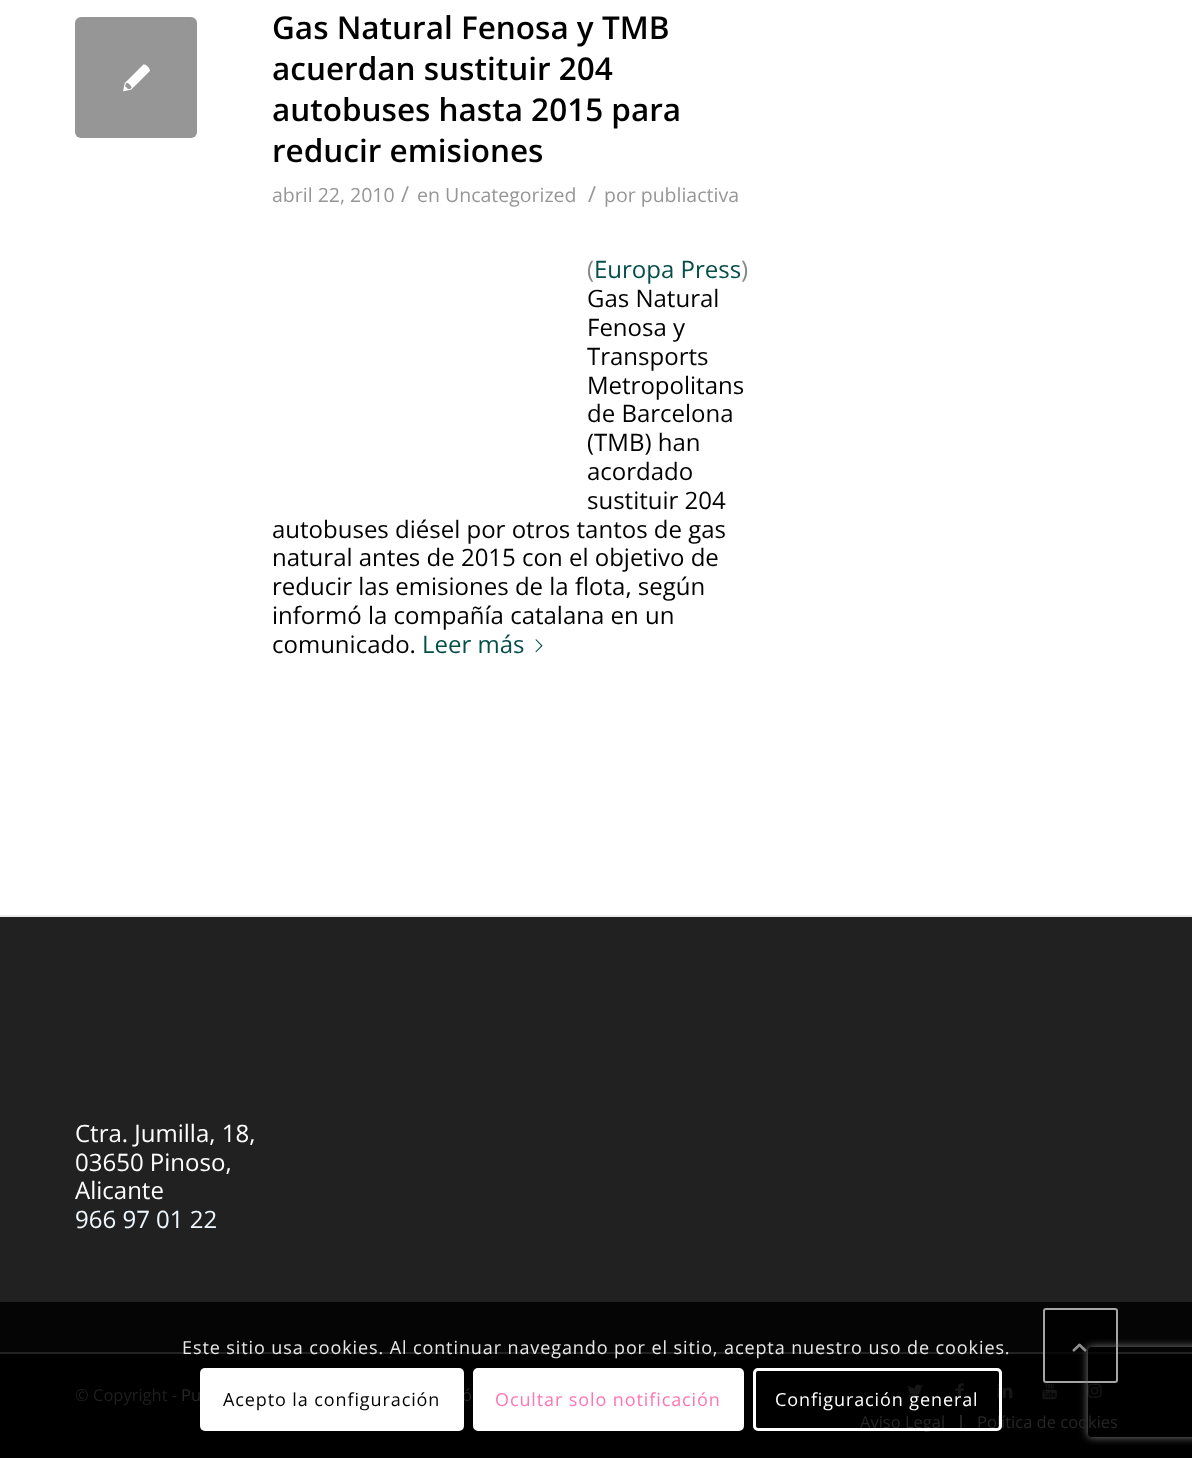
<!DOCTYPE html>
<meta charset="utf-8">
<style>body { margin: 0 } canvas { display: block }</style>
<canvas id="canvas" width="1192" height="1458"></canvas>
<img id="img1" src="img_01.png" hidden>
<img id="img2" src="img_02.png" hidden>
<img id="img3" src="img_03.png" hidden>
<img id="img4" src="img_04.png" hidden>
<img id="img5" src="img_05.png" hidden>
<img id="img6" src="img_06.png" hidden>
<img id="img7" src="img_07.png" hidden>
<img id="img8" src="img_08.png" hidden>
<script>
window.onload = function () {
	const canvas = document.getElementById("canvas");
	const ctx = canvas.getContext("2d");
	ctx.miterLimit = 4;
	ctx.fontKerning = "normal";
	function txt(s, x, y) {
		ctx.fillText(s, x, y);
	}
	function fill(x, y, w, h) {
		ctx.fillRect(x, y, w, h);
	}
	function round(x, y, w, h, r) {
		ctx.beginPath();
		ctx.roundRect(x, y, w, h, r);
		ctx.fill();
	}
	function img(id, x, y, w, h) {
		ctx.drawImage(document.getElementById(id), x, y, w, h);
	}

	ctx.fillStyle = "#FFFFFF";
	fill(0, 0, 1192, 1458);
	ctx.fillStyle = "#969696";
	round(75, 17, 122, 121, 6);
	img("img1", 123, 64, 27, 28);
	img("img2", 535, 639, 8, 14);
	ctx.fillStyle = "#212121";
	fill(0, 917, 1192, 385);
	ctx.fillStyle = "#050505";
	fill(0, 1302, 1192, 50);
	ctx.fillStyle = "#EBEBEB";
	fill(0, 915, 1192, 2);
	ctx.fillStyle = "#000000";
	fill(0, 1354, 1192, 104);
	ctx.fillStyle = "#232323";
	fill(0, 1352, 1192, 2);
	img("img3", 907, 1384, 16, 13);
	img("img4", 955, 1383, 9, 16);
	img("img5", 997, 1383, 16, 15);
	img("img6", 1042, 1382, 15, 18);
	img("img7", 1087, 1383, 15, 15);
	fill(960, 1415, 2, 15);
	ctx.fillStyle = "rgba(0, 0, 0, 0.7)";
	round(1043, 1308, 75, 75, 3);
	ctx.beginPath();
	ctx.roundRect(1044, 1309, 73, 73, 2);
	ctx.strokeStyle = "rgba(235, 235, 235, 0.7)";
	ctx.lineWidth = 2;
	ctx.stroke();
	img("img8", 1072, 1343, 15, 9);
	ctx.fillStyle = "#FFFFFF";
	ctx.beginPath();
	ctx.roundRect(474.5, 1369.5, 268, 60, 3.5);
	ctx.fill();
	ctx.strokeStyle = "#FFFFFF";
	ctx.lineWidth = 3;
	ctx.stroke();
	ctx.save();
	ctx.beginPath();
	ctx.moveTo(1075, 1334);
	ctx.lineTo(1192, 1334);
	ctx.lineTo(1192, 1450);
	ctx.lineTo(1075, 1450);
	ctx.closePath();
	ctx.moveTo(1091, 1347);
	ctx.lineTo(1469, 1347);
	ctx.bezierCurveTo(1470.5, 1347, 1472, 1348.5, 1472, 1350);
	ctx.lineTo(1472, 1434);
	ctx.bezierCurveTo(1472, 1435.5, 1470.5, 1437, 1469, 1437);
	ctx.lineTo(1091, 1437);
	ctx.bezierCurveTo(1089.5, 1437, 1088, 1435.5, 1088, 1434);
	ctx.lineTo(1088, 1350);
	ctx.bezierCurveTo(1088, 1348.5, 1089.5, 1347, 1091, 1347);
	ctx.closePath();
	ctx.clip("evenodd");
	ctx.fillStyle = "#808080";
	ctx.filter = "blur(4px)";
	ctx.beginPath();
	ctx.roundRect(1088, 1347, 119, 90, 3);
	ctx.fill();
	ctx.filter = "none";
	ctx.restore();
	ctx.font = "600 31.5px Open Sans";
	ctx.fillStyle = "#000000";
	txt("Gas Natural Fenosa y TMB", 272, 39);
	txt("acuerdan sustituir 204", 272, 80);
	txt("autobuses hasta 2015 para", 272, 121);
	txt("reducir emisiones", 272, 162);
	ctx.font = "19.5px Open Sans";
	ctx.fillStyle = "#969696";
	txt("abril 22, 2010", 272, 202);
	ctx.font = "22px Open Sans";
	txt("/", 401, 202);
	ctx.font = "19.5px Open Sans";
	txt("en Uncategorized", 417, 202);
	ctx.font = "22px Open Sans";
	txt("/", 588, 202);
	ctx.font = "19.5px Open Sans";
	txt("por publiactiva", 604, 202);
	ctx.font = "24px Open Sans";
	ctx.fillStyle = "#888888";
	txt("(", 587, 278);
	ctx.fillStyle = "#064F49";
	txt("Europa Press", 594, 278);
	ctx.fillStyle = "#888888";
	txt(")", 741, 278);
	ctx.fillStyle = "#000000";
	txt("Gas Natural", 587, 307);
	txt("Fenosa y", 587, 336);
	txt("Transports", 587, 365);
	txt("Metropolitans", 587, 394);
	txt("de Barcelona", 587, 422);
	txt("(TMB) han", 587, 451);
	txt("acordado", 587, 480);
	txt("sustituir 204", 587, 509);
	txt("autobuses diésel por otros tantos de gas", 272, 538);
	txt("natural antes de 2015 con el objetivo de", 272, 566);
	txt("reducir las emisiones de la flota, según", 272, 595);
	txt("informó la compañía catalana en un", 272, 624);
	txt("comunicado.", 272, 653);
	ctx.fillStyle = "#064F49";
	txt("Leer más", 422, 653);
	ctx.fillStyle = "#FFFFFF";
	txt("Ctra. Jumilla, 18,", 75, 1142);
	txt("03650 Pinoso,", 75, 1171);
	txt("Alicante", 75, 1199);
	ctx.fillStyle = "#F0F8FF";
	txt("966 97 01 22", 75, 1228);
	ctx.font = "16.5px Open Sans";
	ctx.fillStyle = "#1F1F1F";
	txt("© Copyright -", 75, 1401);
	ctx.fillStyle = "#262626";
	txt("Pu", 181, 1401);
	txt("ó", 462, 1401);
	txt("Aviso Legal", 860, 1428);
	txt("Política de cookies", 977, 1428);
	ctx.letterSpacing = "0.9px";
	ctx.font = "18px Open Sans";
	ctx.fillStyle = "#E7E7E7";
	txt("Este sitio usa cookies. Al continuar navegando por el sitio, acepta nuestro uso de cookies.", 182, 1354);
	ctx.fillStyle = "#FFFFFF";
	round(200, 1368, 264, 63, 5);
	ctx.fillStyle = "#000000";
	txt("Acepto la configuración", 223, 1406);
	ctx.fillStyle = "#FF75B5";
	txt("Ocultar solo notificación", 495, 1406);
	ctx.beginPath();
	ctx.roundRect(754.5, 1369.5, 246, 60, 3.5);
	ctx.stroke();
	ctx.fillStyle = "#FFFFFF";
	txt("Configuración general", 775, 1406);
};
</script>
